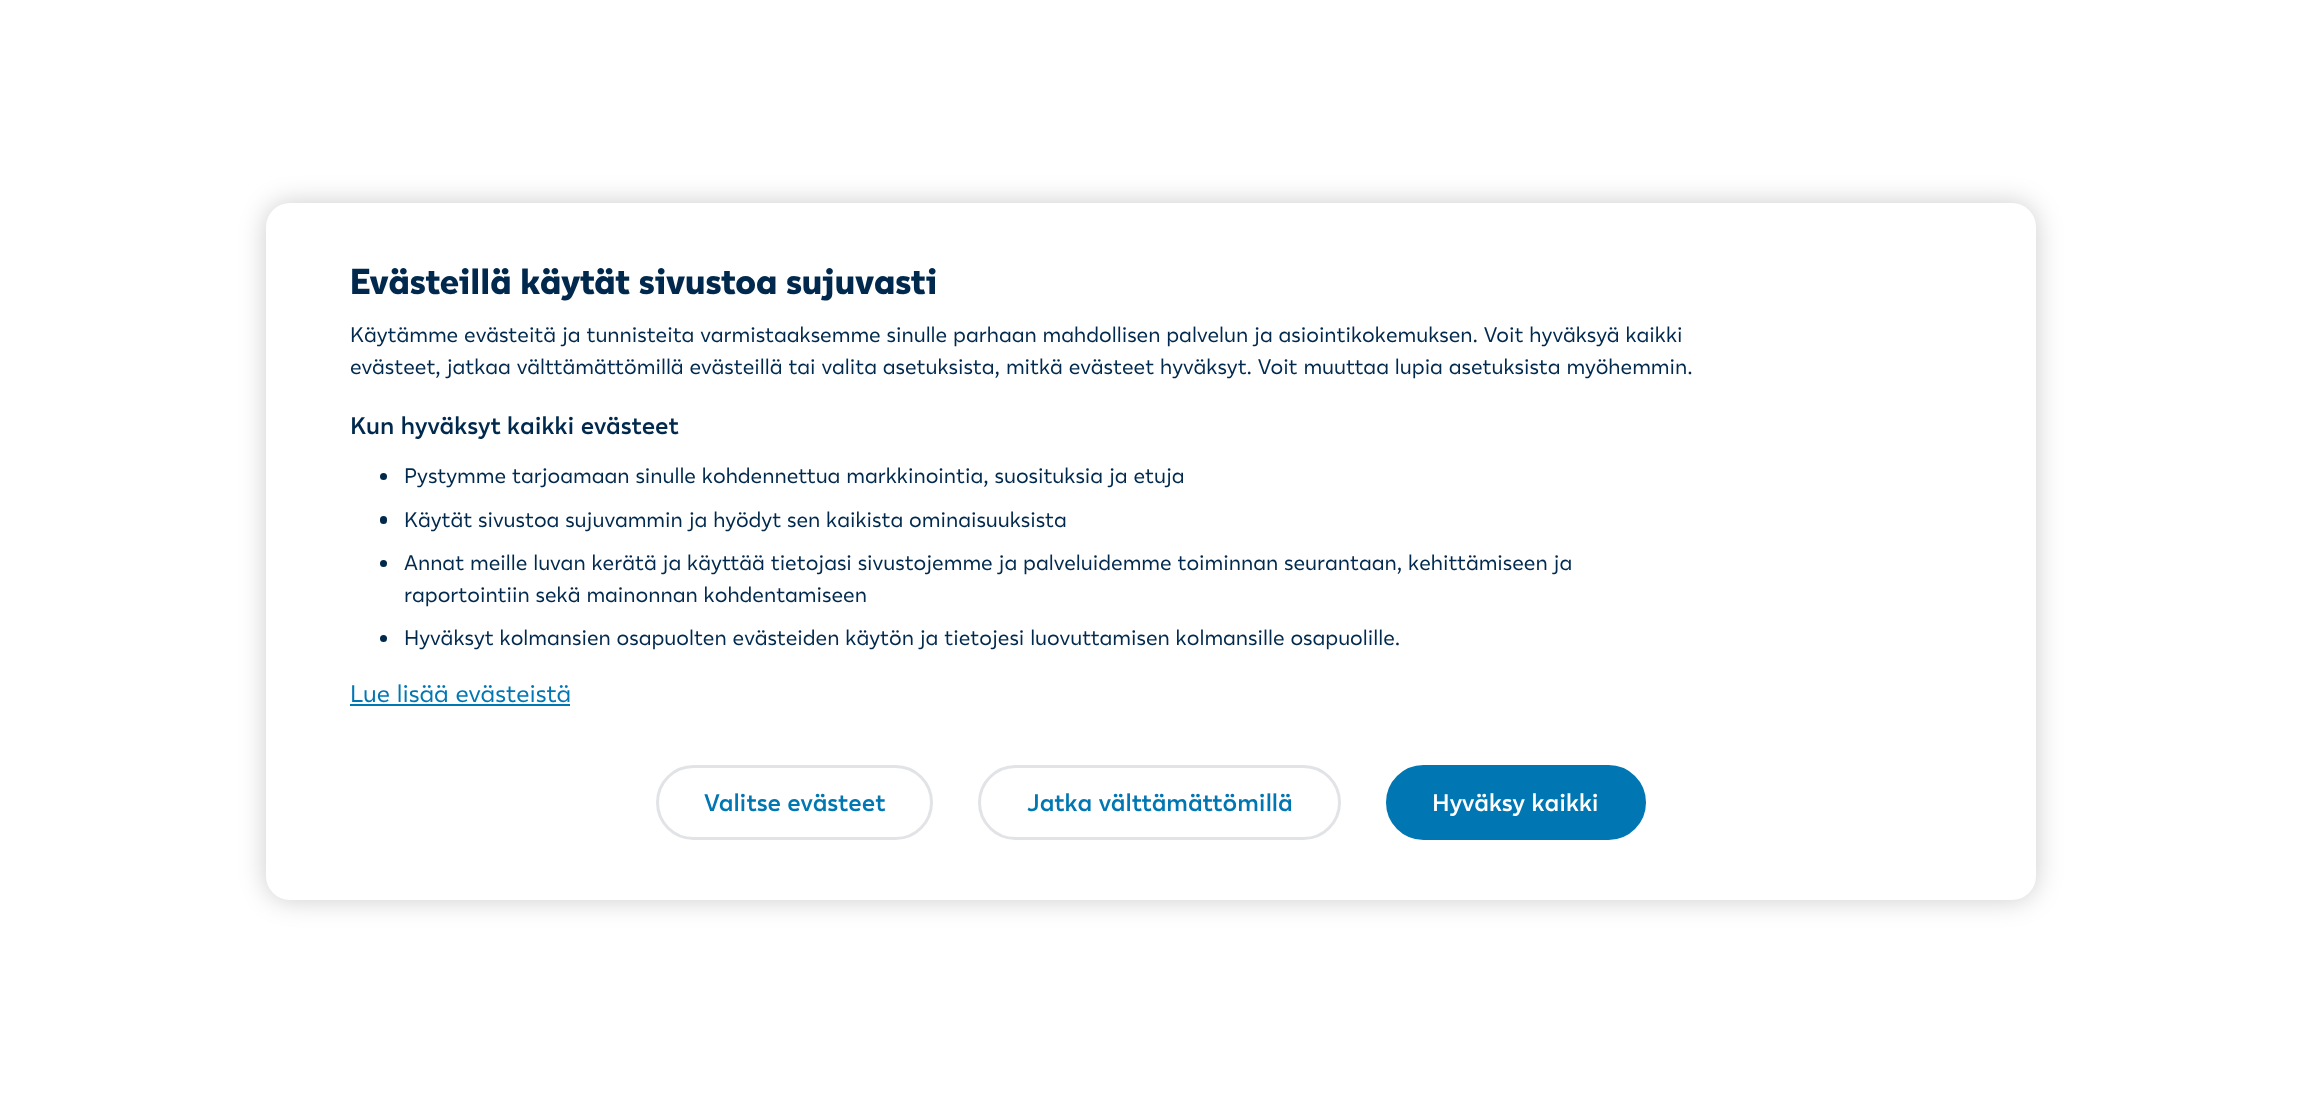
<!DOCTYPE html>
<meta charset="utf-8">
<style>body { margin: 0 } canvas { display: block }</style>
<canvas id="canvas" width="2301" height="1102"></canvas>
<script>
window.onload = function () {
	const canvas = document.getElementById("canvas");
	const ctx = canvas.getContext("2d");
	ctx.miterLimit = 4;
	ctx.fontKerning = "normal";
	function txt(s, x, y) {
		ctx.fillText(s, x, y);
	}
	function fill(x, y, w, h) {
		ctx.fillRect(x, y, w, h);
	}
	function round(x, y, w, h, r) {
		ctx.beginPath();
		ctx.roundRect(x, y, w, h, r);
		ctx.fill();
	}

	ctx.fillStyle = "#FFFFFF";
	fill(0, 0, 2301, 1102);
	ctx.fillStyle = "rgba(0, 0, 0, 0.2)";
	ctx.filter = "blur(13.5px)";
	ctx.beginPath();
	ctx.roundRect(266, 203, 1770, 697, 24);
	ctx.fill();
	ctx.filter = "none";
	ctx.fillStyle = "#FFFFFF";
	round(266, 203, 1770, 697, 24);
	ctx.fillStyle = "#00294D";
	ctx.beginPath();
	ctx.arc(383.5, 476.5, 3.5, 0, Math.PI * 2);
	ctx.fill();
	round(380, 516, 7, 8, 3.5);
	ctx.beginPath();
	ctx.arc(383.5, 563.5, 3.5, 0, Math.PI * 2);
	ctx.fill();
	ctx.beginPath();
	ctx.arc(383.5, 638.5, 3.5, 0, Math.PI * 2);
	ctx.fill();
	ctx.fillStyle = "#0077B3";
	fill(350, 704, 220, 2);
	ctx.beginPath();
	ctx.roundRect(657.5, 766.5, 274, 72, 36);
	ctx.strokeStyle = "#E1E3E6";
	ctx.lineWidth = 3;
	ctx.stroke();
	ctx.beginPath();
	ctx.roundRect(979.5, 766.5, 360, 72, 36);
	ctx.stroke();
	ctx.beginPath();
	ctx.roundRect(1387, 766, 258, 73, 36.5);
	ctx.fill();
	ctx.strokeStyle = "#0077B3";
	ctx.lineWidth = 2;
	ctx.stroke();
	ctx.font = "800 36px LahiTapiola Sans";
	ctx.fillStyle = "#00294D";
	txt("Evästeillä käytät sivustoa sujuvasti", 350, 294);
	ctx.font = "21px LahiTapiola Sans";
	txt("Käytämme evästeitä ja tunnisteita varmistaaksemme sinulle parhaan mahdollisen palvelun ja asiointikokemuksen. Voit hyväksyä kaikki", 350, 342);
	txt("evästeet, jatkaa välttämättömillä evästeillä tai valita asetuksista, mitkä evästeet hyväksyt. Voit muuttaa lupia asetuksista myöhemmin.", 350, 374);
	ctx.font = "600 24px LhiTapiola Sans";
	txt("Kun hyväksyt kaikki evästeet", 350, 434);
	ctx.font = "21px LahiTapiola Sans";
	txt("Pystymme tarjoamaan sinulle kohdennettua markkinointia, suosituksia ja etuja", 404, 483);
	txt("Käytät sivustoa sujuvammin ja hyödyt sen kaikista ominaisuuksista", 404, 527);
	txt("Annat meille luvan kerätä ja käyttää tietojasi sivustojemme ja palveluidemme toiminnan seurantaan, kehittämiseen ja", 404, 570);
	txt("raportointiin sekä mainonnan kohdentamiseen", 404, 602);
	txt("Hyväksyt kolmansien osapuolten evästeiden käytön ja tietojesi luovuttamisen kolmansille osapuolille.", 404, 645);
	ctx.font = "24px LahiTapiola Sans";
	ctx.fillStyle = "#0077B3";
	txt("Lue lisää evästeistä", 350, 702);
	ctx.font = "600 24px LhiTapiola Sans";
	txt("Valitse evästeet", 704, 811);
	txt("Jatka välttämättömillä", 1027, 811);
	ctx.fillStyle = "#FFFFFF";
	txt("Hyväksy kaikki", 1432, 811);
};
</script>
